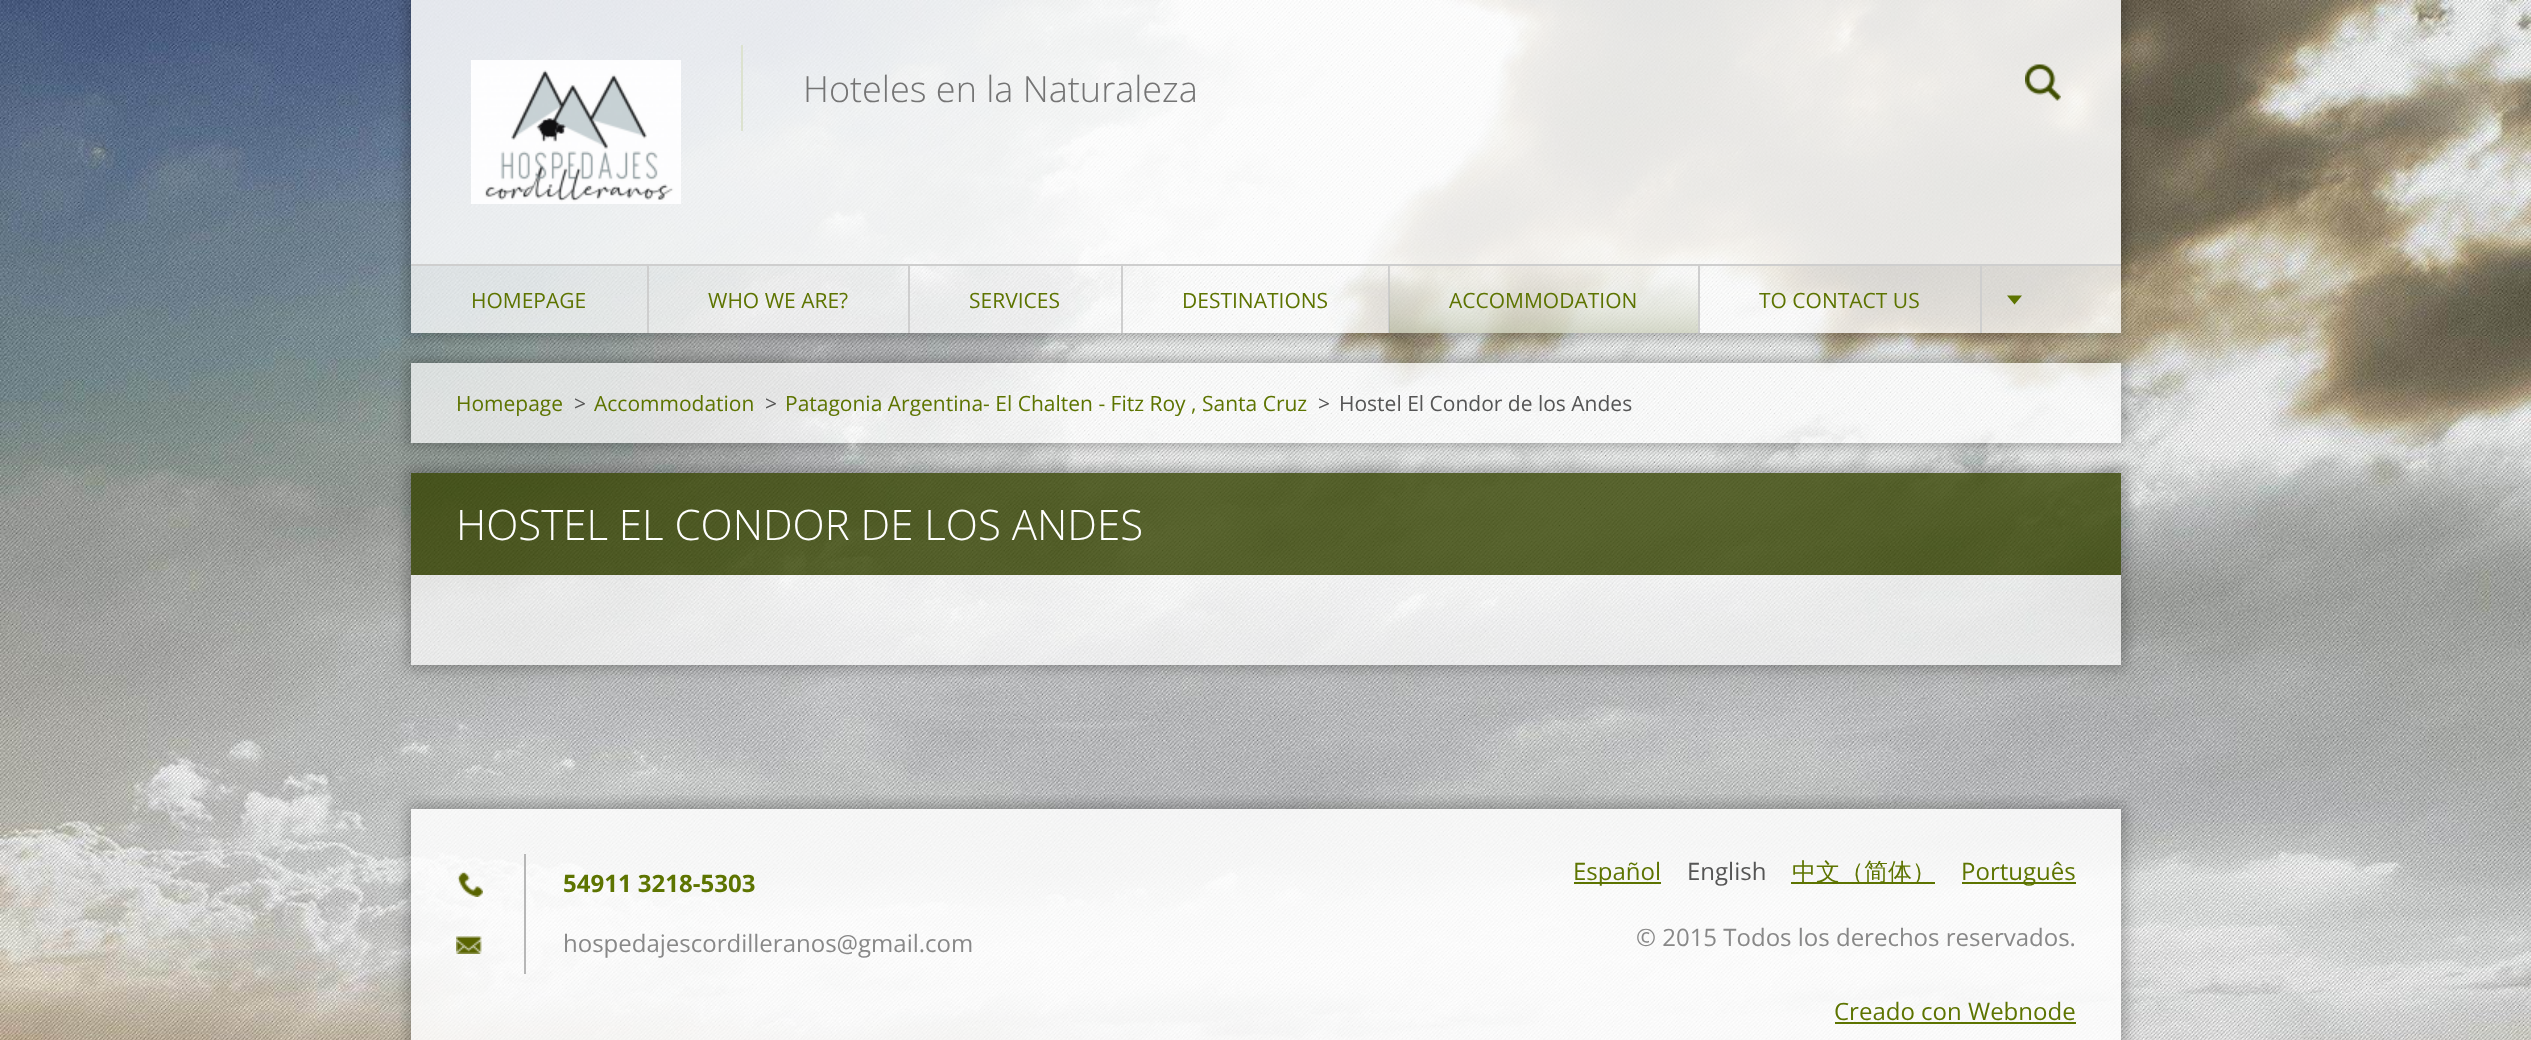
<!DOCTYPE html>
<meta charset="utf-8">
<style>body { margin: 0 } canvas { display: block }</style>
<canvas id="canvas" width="2531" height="1040"></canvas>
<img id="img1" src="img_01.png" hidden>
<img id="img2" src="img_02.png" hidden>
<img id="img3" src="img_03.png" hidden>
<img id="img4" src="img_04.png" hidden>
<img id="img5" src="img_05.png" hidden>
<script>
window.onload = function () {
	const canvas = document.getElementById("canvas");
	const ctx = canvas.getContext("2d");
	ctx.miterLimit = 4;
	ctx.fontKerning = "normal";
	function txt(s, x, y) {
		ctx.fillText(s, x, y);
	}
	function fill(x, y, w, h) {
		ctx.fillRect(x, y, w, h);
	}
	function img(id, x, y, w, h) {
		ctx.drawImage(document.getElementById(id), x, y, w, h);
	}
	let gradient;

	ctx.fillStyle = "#FFFFFF";
	fill(0, 0, 2531, 1040);
	img("img1", 0, 0, 2531, 1040);
	ctx.save();
	ctx.beginPath();
	ctx.moveTo(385, 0);
	ctx.lineTo(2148, 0);
	ctx.lineTo(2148, 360);
	ctx.lineTo(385, 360);
	ctx.closePath();
	ctx.moveTo(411, 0);
	ctx.lineTo(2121, 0);
	ctx.lineTo(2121, 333);
	ctx.lineTo(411, 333);
	ctx.closePath();
	ctx.clip("evenodd");
	ctx.fillStyle = "rgba(0, 0, 0, 0.25)";
	ctx.filter = "blur(7px)";
	ctx.beginPath();
	ctx.rect(407, -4, 1719, 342);
	ctx.fill();
	ctx.filter = "none";
	ctx.restore();
	ctx.fillStyle = "rgba(255, 255, 255, 0.85)";
	fill(411, 0, 1710, 264);
	img("img2", 471, 60, 210, 144);
	ctx.fillStyle = "#DCE2CF";
	fill(741, 45, 2, 86);
	img("img3", 2025, 64, 36, 37);
	ctx.fillStyle = "#CECECE";
	fill(411, 264, 1710, 2);
	ctx.fillStyle = "rgba(255, 255, 255, 0.75)";
	fill(411, 266, 1710, 67);
	ctx.fillStyle = "#CECECE";
	fill(647, 266, 2, 67);
	fill(908, 266, 2, 67);
	fill(1121, 266, 2, 67);
	fill(1388, 266, 2, 67);
	gradient = ctx.createLinearGradient(1544, 266, 1544, 333);
	gradient.addColorStop(0, "rgba(255, 255, 255, 0.1)");
	gradient.addColorStop(1, "rgba(62, 77, 0, 0.2)");
	ctx.fillStyle = gradient;
	fill(1389, 266, 309, 67);
	ctx.fillStyle = "#CECECE";
	fill(1698, 266, 2, 67);
	fill(1980, 266, 2, 67);
	ctx.fillStyle = "#5D7400";
	ctx.beginPath();
	ctx.moveTo(2007, 295.5);
	ctx.lineTo(2022, 295.5);
	ctx.lineTo(2014.5, 304.5);
	ctx.closePath();
	ctx.fill();
	ctx.save();
	ctx.beginPath();
	ctx.moveTo(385, 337);
	ctx.lineTo(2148, 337);
	ctx.lineTo(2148, 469);
	ctx.lineTo(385, 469);
	ctx.closePath();
	ctx.moveTo(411, 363);
	ctx.lineTo(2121, 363);
	ctx.lineTo(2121, 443);
	ctx.lineTo(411, 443);
	ctx.closePath();
	ctx.clip("evenodd");
	ctx.fillStyle = "rgba(0, 0, 0, 0.25)";
	ctx.filter = "blur(7px)";
	ctx.beginPath();
	ctx.rect(407, 359, 1719, 88);
	ctx.fill();
	ctx.filter = "none";
	ctx.restore();
	ctx.fillStyle = "rgba(255, 255, 255, 0.7)";
	fill(411, 363, 1710, 80);
	ctx.save();
	ctx.beginPath();
	ctx.moveTo(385, 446);
	ctx.lineTo(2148, 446);
	ctx.lineTo(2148, 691);
	ctx.lineTo(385, 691);
	ctx.closePath();
	ctx.moveTo(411, 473);
	ctx.lineTo(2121, 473);
	ctx.lineTo(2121, 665);
	ctx.lineTo(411, 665);
	ctx.closePath();
	ctx.clip("evenodd");
	ctx.fillStyle = "rgba(0, 0, 0, 0.25)";
	ctx.filter = "blur(7px)";
	ctx.beginPath();
	ctx.rect(407, 468, 1719, 201);
	ctx.fill();
	ctx.filter = "none";
	ctx.restore();
	ctx.fillStyle = "rgba(53, 66, 0, 0.8)";
	fill(411, 473, 1710, 102);
	ctx.fillStyle = "rgba(255, 255, 255, 0.7)";
	fill(411, 575, 1710, 45);
	fill(411, 620, 1710, 45);
	ctx.save();
	ctx.beginPath();
	ctx.rect(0, 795, 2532, 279);
	ctx.clip();
	ctx.beginPath();
	ctx.moveTo(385, 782);
	ctx.lineTo(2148, 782);
	ctx.lineTo(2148, 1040);
	ctx.lineTo(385, 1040);
	ctx.closePath();
	ctx.moveTo(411, 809);
	ctx.lineTo(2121, 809);
	ctx.lineTo(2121, 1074);
	ctx.lineTo(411, 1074);
	ctx.closePath();
	ctx.clip("evenodd");
	ctx.fillStyle = "rgba(0, 0, 0, 0.25)";
	ctx.filter = "blur(7px)";
	ctx.beginPath();
	ctx.rect(407, 804, 1719, 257);
	ctx.fill();
	ctx.filter = "none";
	ctx.restore();
	ctx.fillStyle = "rgba(255, 255, 255, 0.85)";
	fill(411, 809, 1710, 231);
	img("img4", 457, 871, 26, 26);
	ctx.fillStyle = "#B7B7B7";
	fill(524, 854, 2, 120);
	img("img5", 456, 936, 26, 18);
	ctx.fillStyle = "#5D7400";
	fill(1574, 882, 87, 2);
	fill(1791, 882, 144, 2);
	fill(1962, 882, 114, 2);
	fill(1835, 1022, 241, 2);
	ctx.font = "300 36px Open Sans";
	ctx.fillStyle = "#747474";
	txt("Hoteles en la Naturaleza", 803, 102);
	ctx.font = "21px Open Sans";
	ctx.fillStyle = "#5D7400";
	txt("HOMEPAGE", 471, 308);
	txt("WHO WE ARE?", 708, 308);
	txt("SERVICES", 969, 308);
	txt("DESTINATIONS", 1182, 308);
	txt("ACCOMMODATION", 1449, 308);
	txt("TO CONTACT US", 1759, 308);
	txt("Homepage", 456, 411);
	ctx.fillStyle = "#555555";
	txt(">", 574, 411);
	ctx.fillStyle = "#5D7400";
	txt("Accommodation", 594, 411);
	ctx.fillStyle = "#555555";
	txt(">", 765, 411);
	ctx.fillStyle = "#5D7400";
	txt("Patagonia Argentina- El Chalten - Fitz Roy , Santa Cruz", 785, 411);
	ctx.fillStyle = "#555555";
	txt(">", 1318, 411);
	txt("Hostel El Condor de los Andes", 1339, 411);
	ctx.font = "300 42px Open Sans";
	ctx.fillStyle = "#FFFFFF";
	txt("HOSTEL EL CONDOR DE LOS ANDES", 456, 540);
	ctx.font = "bold 24px Open Sans";
	ctx.fillStyle = "#5D7400";
	txt("54911 3218-5303", 563, 892);
	ctx.font = "24px Open Sans";
	ctx.fillStyle = "#888888";
	txt("hospedajescordilleranos@gmail.com", 563, 952);
	ctx.fillStyle = "#5D7400";
	txt("Español", 1573, 880);
	ctx.fillStyle = "#555555";
	txt("English", 1687, 880);
	ctx.font = "500 24px WenQuanYi Zen Hei";
	ctx.fillStyle = "#5D7400";
	txt("中文（简体）", 1792, 880);
	ctx.font = "24px Open Sans";
	txt("Português", 1961, 880);
	ctx.fillStyle = "#888888";
	txt("© 2015 Todos los derechos reservados.", 1636, 946);
	ctx.fillStyle = "#5D7400";
	txt("Creado con Webnode", 1834, 1020);
};
</script>
